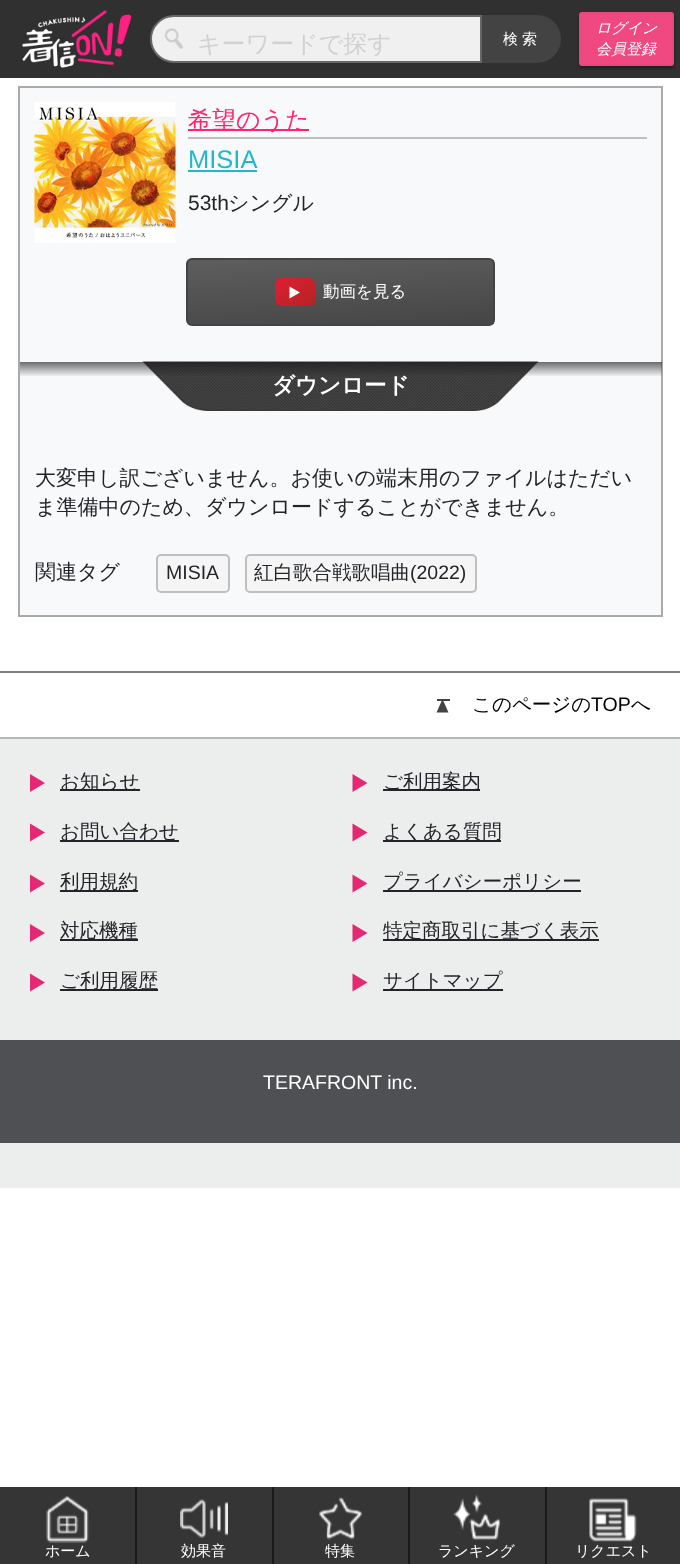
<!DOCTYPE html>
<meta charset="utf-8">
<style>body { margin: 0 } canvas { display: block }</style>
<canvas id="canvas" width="680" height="1564"></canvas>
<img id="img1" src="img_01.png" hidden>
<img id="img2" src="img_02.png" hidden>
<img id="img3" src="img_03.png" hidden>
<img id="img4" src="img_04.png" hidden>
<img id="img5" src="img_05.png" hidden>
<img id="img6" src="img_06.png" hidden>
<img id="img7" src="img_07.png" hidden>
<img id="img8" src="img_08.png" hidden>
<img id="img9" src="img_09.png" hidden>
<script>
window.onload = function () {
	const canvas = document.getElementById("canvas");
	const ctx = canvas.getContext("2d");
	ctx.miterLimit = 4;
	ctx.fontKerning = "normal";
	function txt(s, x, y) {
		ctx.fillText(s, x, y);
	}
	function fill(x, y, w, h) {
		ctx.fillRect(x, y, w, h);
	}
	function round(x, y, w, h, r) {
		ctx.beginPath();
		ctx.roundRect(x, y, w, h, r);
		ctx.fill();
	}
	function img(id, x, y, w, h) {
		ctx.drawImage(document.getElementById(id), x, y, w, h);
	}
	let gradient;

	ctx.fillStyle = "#FFFFFF";
	fill(0, 0, 680, 1564);
	ctx.fillStyle = "#303030";
	fill(0, 0, 680, 78);
	img("img1", 22, 10, 110, 58);
	ctx.fillStyle = "#F0F0F0";
	ctx.beginPath();
	ctx.roundRect(151, 16, 330, 46, [23, 0, 0, 23]);
	ctx.fill();
	ctx.strokeStyle = "#676767";
	ctx.lineWidth = 2;
	ctx.stroke();
	img("img2", 165, 28, 18, 21);
	ctx.fillStyle = "#434343";
	ctx.beginPath();
	ctx.roundRect(482, 15, 79, 48, [0, 24, 24, 0]);
	ctx.fill();
	ctx.fillStyle = "rgba(0, 0, 0, 0.39)";
	ctx.filter = "blur(1.5px)";
	ctx.beginPath();
	ctx.roundRect(579, 14, 95, 54, 3);
	ctx.fill();
	ctx.filter = "none";
	ctx.fillStyle = "#F04880";
	ctx.beginPath();
	ctx.roundRect(580, 13, 93, 52, 2);
	ctx.fill();
	ctx.strokeStyle = "#E34A7D";
	ctx.stroke();
	ctx.fillStyle = "#353535";
	fill(0, 1487, 680, 77);
	ctx.fillStyle = "#1A1A1A";
	fill(135, 1487, 2, 77);
	img("img3", 46, 1495, 43, 48);
	fill(272, 1487, 2, 77);
	img("img4", 180, 1499, 48, 40);
	fill(408, 1487, 2, 77);
	img("img5", 319, 1497, 43, 43);
	fill(545, 1487, 2, 77);
	img("img6", 453, 1494, 48, 46);
	img("img7", 589, 1498, 48, 44);
	ctx.fillStyle = "#F8F9FB";
	ctx.beginPath();
	ctx.rect(19, 87, 643, 529);
	ctx.fill();
	ctx.strokeStyle = "#AAAAAA";
	ctx.stroke();
	img("img8", 34, 102, 142, 141);
	ctx.fillStyle = "#BFBFBF";
	fill(188, 137, 459, 2);
	ctx.fillStyle = "#FF246C";
	fill(188, 129, 121, 2);
	ctx.fillStyle = "#21B7CD";
	fill(188, 170, 69, 2);
	ctx.save();
	ctx.beginPath();
	ctx.roundRect(186, 258, 309, 68, 6);
	ctx.clip();
	gradient = ctx.createLinearGradient(37, 267, 32, 187);
	gradient.addColorStop(0, "#464646");
	gradient.addColorStop(0.99, "#5D5D5D");
	gradient.addColorStop(1, "#5D5D5D");
	ctx.fillStyle = gradient;
	fill(186, 259, 2, 1);
	ctx.restore();
	gradient = ctx.createLinearGradient(343, 332, 338, 252);
	gradient.addColorStop(0, "#464646");
	gradient.addColorStop(0.99, "#5D5D5D");
	gradient.addColorStop(1, "#5D5D5D");
	ctx.fillStyle = gradient;
	fill(188, 260, 306, 64);
	ctx.save();
	ctx.beginPath();
	ctx.roundRect(186, 258, 309, 68, 6);
	ctx.clip();
	gradient = ctx.createLinearGradient(37, 396, 32, 316);
	gradient.addColorStop(0, "#464646");
	gradient.addColorStop(0.99, "#5D5D5D");
	gradient.addColorStop(1, "#5D5D5D");
	ctx.fillStyle = gradient;
	fill(186, 324, 2, 1);
	ctx.restore();
	ctx.beginPath();
	ctx.roundRect(187, 259, 307, 66, 5);
	ctx.strokeStyle = "#434343";
	ctx.stroke();
	ctx.fillStyle = "rgba(0, 0, 0, 0.17)";
	ctx.filter = "blur(0.5px)";
	ctx.beginPath();
	ctx.roundRect(275, 278, 40, 28, 6);
	ctx.fill();
	ctx.filter = "none";
	gradient = ctx.createLinearGradient(282, 272, 307, 311);
	gradient.addColorStop(0, "#E01F34");
	gradient.addColorStop(0.99, "#B52323");
	gradient.addColorStop(1, "#B52323");
	ctx.fillStyle = gradient;
	round(275, 278, 40, 28, 6);
	ctx.save();
	ctx.beginPath();
	ctx.moveTo(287, 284);
	ctx.lineTo(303, 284);
	ctx.lineTo(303, 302);
	ctx.lineTo(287, 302);
	ctx.closePath();
	ctx.moveTo(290, 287);
	ctx.lineTo(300, 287);
	ctx.lineTo(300, 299);
	ctx.lineTo(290, 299);
	ctx.closePath();
	ctx.clip("evenodd");
	ctx.fillStyle = "rgba(0, 0, 0, 0.17)";
	ctx.filter = "blur(0.5px)";
	ctx.beginPath();
	ctx.rect(290, 287, 10, 12);
	ctx.fill();
	ctx.filter = "none";
	ctx.restore();
	ctx.fillStyle = "#FFFFFF";
	ctx.beginPath();
	ctx.moveTo(289.5, 298.5);
	ctx.lineTo(289.5, 286.5);
	ctx.lineTo(300, 292.5);
	ctx.closePath();
	ctx.fill();
	img("img9", 142, 361, 397, 50);
	ctx.fillStyle = "#F5F5F5";
	ctx.beginPath();
	ctx.roundRect(157, 555, 72, 37, 4);
	ctx.fill();
	ctx.strokeStyle = "#BFBFBF";
	ctx.stroke();
	ctx.beginPath();
	ctx.roundRect(246, 555, 230, 37, 4);
	ctx.fill();
	ctx.stroke();
	ctx.fillStyle = "#ECEDED";
	fill(0, 739, 680, 449);
	ctx.fillStyle = "#B7B7B7";
	fill(0, 737, 680, 2);
	ctx.fillStyle = "#7D7D7D";
	fill(0, 671, 680, 2);
	ctx.fillStyle = "#434343";
	fill(437, 699, 13, 2);
	ctx.beginPath();
	ctx.moveTo(448.5, 712.5);
	ctx.lineTo(436.5, 712.5);
	ctx.lineTo(442.5, 699);
	ctx.closePath();
	ctx.fill();
	ctx.fillStyle = "#E42873";
	ctx.beginPath();
	ctx.moveTo(30, 792);
	ctx.lineTo(30, 774);
	ctx.lineTo(45, 783);
	ctx.closePath();
	ctx.fill();
	ctx.fillStyle = "#212529";
	fill(60, 789, 80, 2);
	ctx.fillStyle = "#E42873";
	ctx.beginPath();
	ctx.moveTo(352.5, 792);
	ctx.lineTo(352.5, 774);
	ctx.lineTo(367.5, 783);
	ctx.closePath();
	ctx.fill();
	ctx.fillStyle = "#212529";
	fill(383, 789, 97, 2);
	ctx.fillStyle = "#E42873";
	ctx.beginPath();
	ctx.moveTo(30, 841.5);
	ctx.lineTo(30, 823.5);
	ctx.lineTo(45, 832.5);
	ctx.closePath();
	ctx.fill();
	ctx.fillStyle = "#212529";
	fill(60, 840, 119, 2);
	ctx.fillStyle = "#E42873";
	ctx.beginPath();
	ctx.moveTo(352.5, 841.5);
	ctx.lineTo(352.5, 823.5);
	ctx.lineTo(367.5, 832.5);
	ctx.closePath();
	ctx.fill();
	ctx.fillStyle = "#212529";
	fill(383, 840, 118, 2);
	ctx.fillStyle = "#E42873";
	ctx.beginPath();
	ctx.moveTo(30, 892.5);
	ctx.lineTo(30, 874.5);
	ctx.lineTo(45, 883.5);
	ctx.closePath();
	ctx.fill();
	ctx.fillStyle = "#212529";
	fill(60, 890, 78, 2);
	ctx.fillStyle = "#E42873";
	ctx.beginPath();
	ctx.moveTo(352.5, 892.5);
	ctx.lineTo(352.5, 874.5);
	ctx.lineTo(367.5, 883.5);
	ctx.closePath();
	ctx.fill();
	ctx.fillStyle = "#212529";
	fill(383, 890, 198, 2);
	ctx.fillStyle = "#E42873";
	ctx.beginPath();
	ctx.moveTo(30, 942);
	ctx.lineTo(30, 924);
	ctx.lineTo(45, 933);
	ctx.closePath();
	ctx.fill();
	ctx.fillStyle = "#212529";
	fill(60, 939, 78, 2);
	ctx.fillStyle = "#E42873";
	ctx.beginPath();
	ctx.moveTo(352.5, 942);
	ctx.lineTo(352.5, 924);
	ctx.lineTo(367.5, 933);
	ctx.closePath();
	ctx.fill();
	ctx.fillStyle = "#212529";
	fill(383, 939, 216, 2);
	ctx.fillStyle = "#E42873";
	ctx.beginPath();
	ctx.moveTo(30, 991.5);
	ctx.lineTo(30, 973.5);
	ctx.lineTo(45, 982.5);
	ctx.closePath();
	ctx.fill();
	ctx.fillStyle = "#212529";
	fill(60, 989, 98, 2);
	ctx.fillStyle = "#E42873";
	ctx.beginPath();
	ctx.moveTo(352.5, 991.5);
	ctx.lineTo(352.5, 973.5);
	ctx.lineTo(367.5, 982.5);
	ctx.closePath();
	ctx.fill();
	ctx.fillStyle = "#212529";
	fill(383, 989, 120, 2);
	ctx.fillStyle = "#4E5053";
	fill(0, 1040, 680, 103);
	ctx.font = "500 24px WenQuanYi Zen Hei";
	ctx.fillStyle = "#D1D1D1";
	txt("キーワードで探す", 197, 52);
	ctx.letterSpacing = "4px";
	ctx.font = "500 15px WenQuanYi Zen Hei";
	ctx.fillStyle = "#FFFFFF";
	txt("検索", 503, 44);
	ctx.letterSpacing = "0px";
	ctx.font = "italic 500 15px WenQuanYi Zen Hei";
	txt("ログイン", 596, 33);
	txt("会員登録", 596, 54);
	ctx.font = "500 15px WenQuanYi Zen Hei";
	txt("ホーム", 45, 1556);
	txt("効果音", 181, 1556);
	txt("特集", 325, 1556);
	txt("ランキング", 438, 1556);
	txt("リクエスト", 575, 1556);
	ctx.font = "500 24px WenQuanYi Zen Hei";
	ctx.fillStyle = "#FF246C";
	txt("希望のうた", 188, 128);
	ctx.font = "25.5px Liberation Sans";
	ctx.fillStyle = "#21B7CD";
	txt("MISIA", 188, 168);
	ctx.font = "21px Liberation Sans";
	ctx.fillStyle = "#212529";
	txt("53th", 188, 210);
	ctx.font = "500 21px WenQuanYi Zen Hei";
	txt("シングル", 228, 210);
	ctx.font = "500 16.5px WenQuanYi Zen Hei";
	ctx.fillStyle = "#FFFFFF";
	txt("動画を見る", 323, 297);
	ctx.font = "bold 22.5px WenQuanYi Zen Hei";
	txt("ダウンロード", 272, 393);
	gradient = ctx.createLinearGradient(341, 377, 341, 362);
	gradient.addColorStop(0, "rgba(0, 0, 0, 0.63)");
	gradient.addColorStop(0, "rgba(0, 0, 0, 0)");
	gradient.addColorStop(0, "rgba(26, 26, 27, 0)");
	gradient.addColorStop(1, "rgba(26, 26, 27, 0.63)");
	ctx.fillStyle = gradient;
	fill(20, 362, 642, 14);
	ctx.font = "500 21px WenQuanYi Zen Hei";
	ctx.fillStyle = "#212529";
	txt("大変申し訳ございません。お使いの端末用のファイルはただい", 35, 485);
	txt("ま準備中のため、ダウンロードすることができません。", 35, 514);
	txt("関連タグ", 35, 579);
	ctx.font = "19.5px Liberation Sans";
	txt("MISIA", 166, 579);
	ctx.font = "500 19.5px WenQuanYi Zen Hei";
	txt("紅白歌合戦歌唱曲", 254, 579);
	ctx.font = "19.5px Liberation Sans";
	txt("(2022)", 410, 579);
	ctx.font = "500 19.5px WenQuanYi Zen Hei";
	ctx.fillStyle = "#000000";
	txt("このページの", 472, 711);
	ctx.font = "19.5px Liberation Sans";
	txt("TOP", 591, 711);
	ctx.font = "500 19.5px WenQuanYi Zen Hei";
	txt("へ", 631, 711);
	ctx.fillStyle = "#212529";
	txt("お知らせ", 60, 788);
	txt("ご利用案内", 383, 788);
	txt("お問い合わせ", 60, 838);
	txt("よくある質問", 383, 838);
	txt("利用規約", 60, 888);
	txt("プライバシーポリシー", 383, 888);
	txt("対応機種", 60, 937);
	txt("特定商取引に基づく表示", 383, 937);
	txt("ご利用履歴", 60, 987);
	txt("サイトマップ", 383, 987);
	ctx.font = "19.5px Liberation Sans";
	ctx.fillStyle = "#FFFFFF";
	txt("TERAFRONT inc.", 263, 1089);
};
</script>
